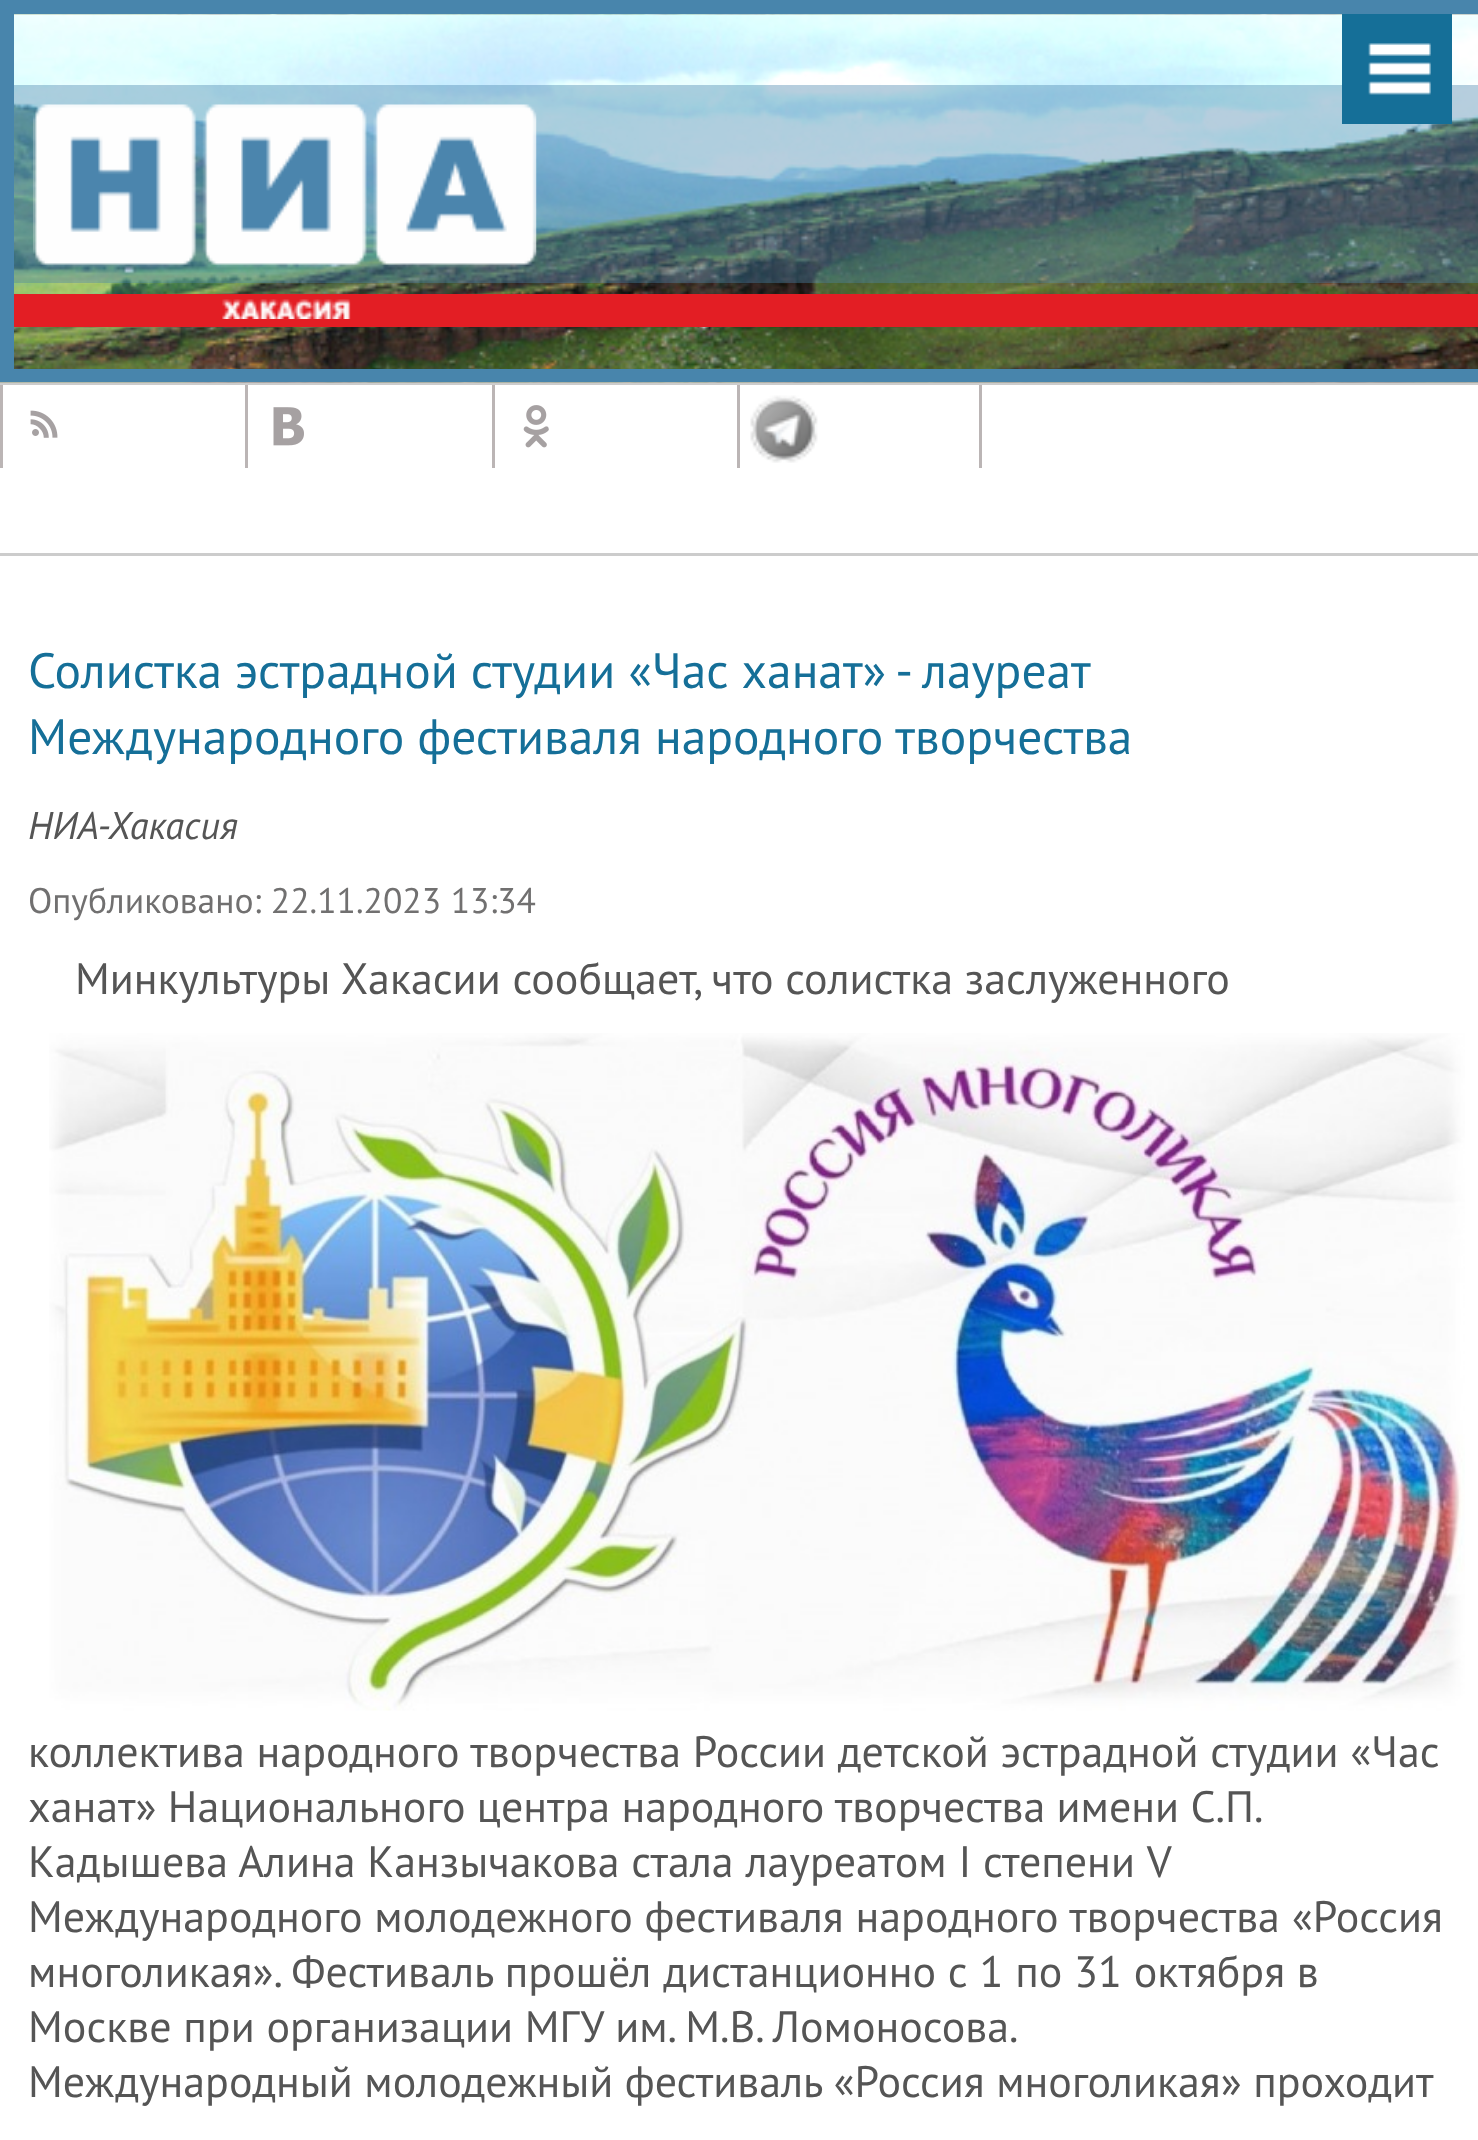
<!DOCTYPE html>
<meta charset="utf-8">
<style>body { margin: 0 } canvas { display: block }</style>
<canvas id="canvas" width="1478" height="2140"></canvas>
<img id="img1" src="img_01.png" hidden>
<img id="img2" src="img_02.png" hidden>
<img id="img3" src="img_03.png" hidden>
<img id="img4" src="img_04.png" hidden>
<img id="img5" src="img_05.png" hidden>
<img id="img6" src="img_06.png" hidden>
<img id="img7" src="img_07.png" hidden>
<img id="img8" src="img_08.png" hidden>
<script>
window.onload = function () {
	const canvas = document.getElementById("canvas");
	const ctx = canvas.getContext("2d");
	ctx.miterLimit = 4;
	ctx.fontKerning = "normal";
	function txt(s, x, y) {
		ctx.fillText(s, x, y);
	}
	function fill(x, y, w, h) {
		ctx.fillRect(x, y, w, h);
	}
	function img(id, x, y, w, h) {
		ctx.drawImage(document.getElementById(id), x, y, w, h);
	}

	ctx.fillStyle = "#FFFFFF";
	fill(0, 0, 1478, 2140);
	ctx.fillStyle = "#CCCCCC";
	fill(0, 382, 1478, 3);
	img("img1", 0, 14, 1478, 369);
	ctx.fillStyle = "#4885AC";
	fill(14, 0, 1464, 14);
	fill(14, 369, 1464, 13);
	fill(0, 0, 14, 382);
	ctx.fillStyle = "rgba(72, 133, 172, 0.4)";
	fill(14, 85, 1464, 198);
	ctx.fillStyle = "#156F98";
	fill(1342, 14, 110, 110);
	img("img2", 1368, 43, 63, 52);
	ctx.fillStyle = "#E31E24";
	fill(14, 294, 1464, 33);
	img("img3", 33, 104, 504, 215);
	ctx.fillStyle = "#CCCCCC";
	fill(0, 553, 1478, 3);
	img("img4", 30, 410, 28, 28);
	ctx.fillStyle = "#BBB5B5";
	fill(0, 385, 3, 83);
	img("img5", 273, 407, 31, 39);
	fill(245, 385, 3, 83);
	img("img6", 523, 405, 26, 43);
	fill(492, 385, 3, 83);
	img("img7", 750, 395, 68, 68);
	fill(979, 385, 3, 83);
	fill(737, 385, 3, 83);
	img("img8", 49, 1033, 1416, 678);
	ctx.wordSpacing = "-0.25px";
	ctx.font = "49.5px PT Sans";
	ctx.fillStyle = "#156F98";
	txt("Солистка эстрадной студии «Час ханат» - лауреат", 28, 688);
	ctx.wordSpacing = "0px";
	txt("Международного фестиваля народного творчества", 28, 754);
	ctx.font = "italic 38.5px PT Sans";
	ctx.fillStyle = "#555555";
	txt("НИА-Хакасия", 28, 839);
	ctx.font = "35.6px PT Sans";
	ctx.fillStyle = "#717070";
	txt("Опубликовано: 22.11.2023 13:34", 28, 913);
	ctx.font = "44px PT Sans";
	ctx.fillStyle = "#555555";
	txt("Минкультуры Хакасии сообщает, что солистка заслуженного", 75, 994);
	txt("коллектива народного творчества России детской эстрадной студии «Час", 28, 1767);
	ctx.wordSpacing = "-0.5px";
	txt("ханат» Национального центра народного творчества имени С.П.", 28, 1822);
	ctx.wordSpacing = "0px";
	txt("Кадышева Алина Канзычакова стала лауреатом I степени V", 28, 1877);
	txt("Международного молодежного фестиваля народного творчества «Россия", 28, 1932);
	txt("многоликая». Фестиваль прошёл дистанционно с 1 по 31 октября в", 28, 1987);
	txt("Москве при организации МГУ им. М.В. Ломоносова.", 28, 2042);
	ctx.wordSpacing = "-0.25px";
	txt("Международный молодежный фестиваль «Россия многоликая» проходит", 28, 2097);
};
</script>
